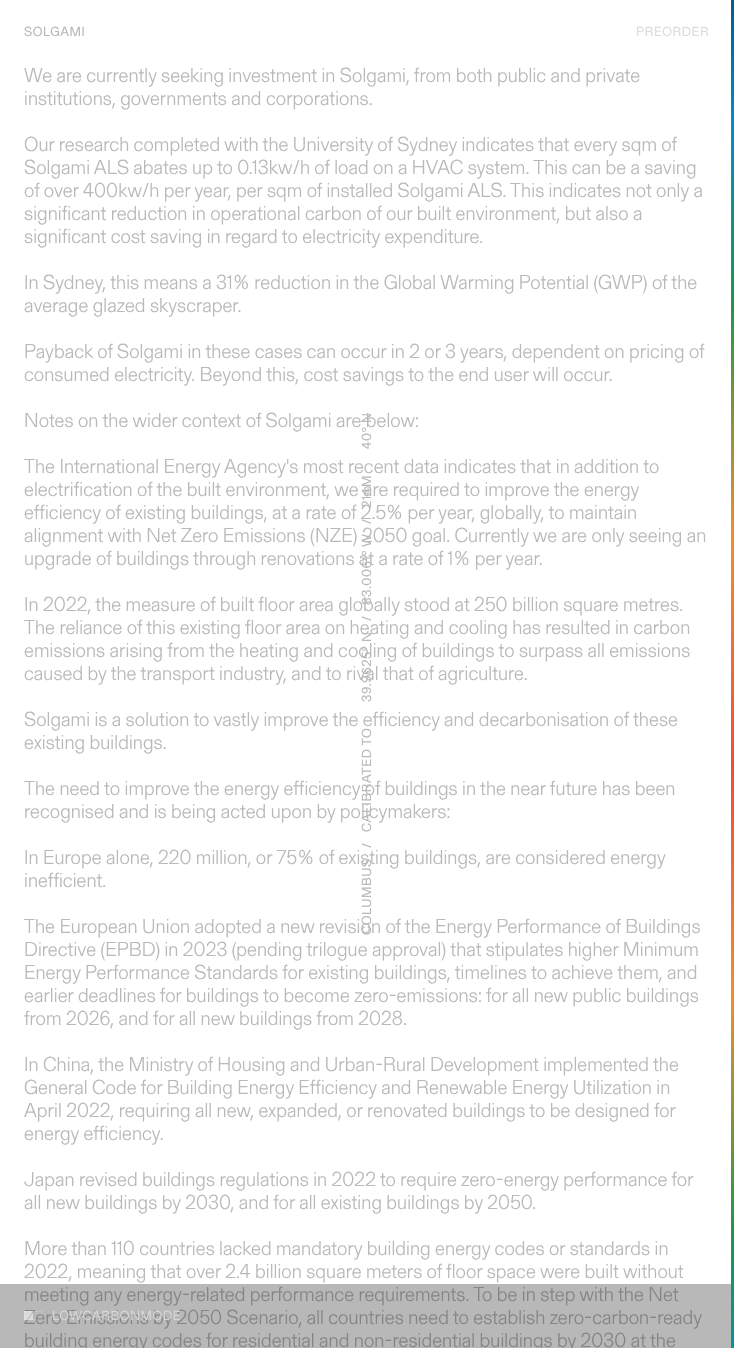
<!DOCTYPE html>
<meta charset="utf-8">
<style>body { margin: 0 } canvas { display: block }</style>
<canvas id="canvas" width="734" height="1348"></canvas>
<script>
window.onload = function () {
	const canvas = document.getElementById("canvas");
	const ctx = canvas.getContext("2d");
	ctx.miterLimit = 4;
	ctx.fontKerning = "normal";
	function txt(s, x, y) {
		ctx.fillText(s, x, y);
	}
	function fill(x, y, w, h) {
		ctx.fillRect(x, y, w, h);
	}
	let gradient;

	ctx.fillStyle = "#FFFFFF";
	fill(0, 0, 734, 1348);
	ctx.fillStyle = "#B8B8B8";
	fill(0, 1284, 731, 64);
	gradient = ctx.createLinearGradient(732, 0, 733, 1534);
	gradient.addColorStop(0, "#005D90");
	gradient.addColorStop(0.08, "#008CD0");
	gradient.addColorStop(0.2, "#1E9948");
	gradient.addColorStop(0.35, "#F68C2A");
	gradient.addColorStop(0.5, "#F04C3A");
	gradient.addColorStop(0.65, "#F68C2A");
	gradient.addColorStop(0.8, "#1E9948");
	gradient.addColorStop(0.92, "#008CD0");
	gradient.addColorStop(1, "#005D90");
	ctx.fillStyle = gradient;
	fill(731, 0, 3, 1348);
	ctx.letterSpacing = "0.6px";
	ctx.font = "13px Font";
	ctx.fillStyle = "#B9B9B9";
	txt("SOLGAMI", 24, 36);
	ctx.fillStyle = "#DCDCDC";
	txt("PREORDER", 636, 36);
	ctx.letterSpacing = "0.1px";
	ctx.font = "300 20px Font";
	ctx.fillStyle = "#B9B9B9";
	txt("We are currently seeking investment in Solgami, from both public and private", 24, 82);
	txt("institutions, governments and corporations.", 24, 105);
	txt("Our research completed with the University of Sydney indicates that every sqm of", 24, 151);
	txt("Solgami ALS abates up to 0.13kw/h of load on a HVAC system. This can be a saving", 24, 174);
	txt("of over 400kw/h per year, per sqm of installed Solgami ALS. This indicates not only a", 24, 197);
	txt("significant reduction in operational carbon of our built environment, but also a", 24, 220);
	txt("significant cost saving in regard to electricity expenditure.", 24, 243);
	txt("In Sydney, this means a 31% reduction in the Global Warming Potential (GWP) of the", 24, 289);
	txt("average glazed skyscraper.", 24, 312);
	txt("Payback of Solgami in these cases can occur in 2 or 3 years, dependent on pricing of", 24, 358);
	txt("consumed electricity. Beyond this, cost savings to the end user will occur.", 24, 381);
	txt("Notes on the wider context of Solgami are below:", 24, 427);
	txt("The International Energy Agency's most recent data indicates that in addition to", 24, 473);
	txt("electrification of the built environment, we are required to improve the energy", 24, 496);
	txt("efficiency of existing buildings, at a rate of 2.5% per year, globally, to maintain", 24, 519);
	txt("alignment with Net Zero Emissions (NZE) 2050 goal. Currently we are only seeing an", 24, 542);
	txt("upgrade of buildings through renovations at a rate of 1% per year.", 24, 565);
	txt("In 2022, the measure of built floor area globally stood at 250 billion square metres.", 24, 611);
	txt("The reliance of this existing floor area on heating and cooling has resulted in carbon", 24, 634);
	txt("emissions arising from the heating and cooling of buildings to surpass all emissions", 24, 657);
	txt("caused by the transport industry, and to rival that of agriculture.", 24, 680);
	txt("Solgami is a solution to vastly improve the efficiency and decarbonisation of these", 24, 726);
	txt("existing buildings.", 24, 749);
	txt("The need to improve the energy efficiency of buildings in the near future has been", 24, 795);
	txt("recognised and is being acted upon by policymakers:", 24, 818);
	txt("In Europe alone, 220 million, or 75% of existing buildings, are considered energy", 24, 864);
	txt("inefficient.", 24, 887);
	txt("The European Union adopted a new revision of the Energy Performance of Buildings", 24, 933);
	txt("Directive (EPBD) in 2023 (pending trilogue approval) that stipulates higher Minimum", 24, 956);
	txt("Energy Performance Standards for existing buildings, timelines to achieve them, and", 24, 979);
	txt("earlier deadlines for buildings to become zero-emissions: for all new public buildings", 24, 1002);
	txt("from 2026, and for all new buildings from 2028.", 24, 1025);
	txt("In China, the Ministry of Housing and Urban-Rural Development implemented the", 24, 1071);
	txt("General Code for Building Energy Efficiency and Renewable Energy Utilization in", 24, 1094);
	txt("April 2022, requiring all new, expanded, or renovated buildings to be designed for", 24, 1117);
	txt("energy efficiency.", 24, 1140);
	txt("Japan revised buildings regulations in 2022 to require zero-energy performance for", 24, 1186);
	txt("all new buildings by 2030, and for all existing buildings by 2050.", 24, 1209);
	txt("More than 110 countries lacked mandatory building energy codes or standards in", 24, 1255);
	txt("2022, meaning that over 2.4 billion square meters of floor space were built without", 24, 1278);
	ctx.fillStyle = "#858585";
	txt("meeting any energy-related performance requirements. To be in step with the Net", 24, 1301);
	txt("Zero Emissions by 2050 Scenario, all countries need to establish zero-carbon-ready", 24, 1324);
	txt("building energy codes for residential and non-residential buildings by 2030 at the", 24, 1347);
	ctx.letterSpacing = "0.6px";
	ctx.font = "13px Font";
	ctx.fillStyle = "#B9B9B9";
	ctx.save();
	ctx.translate(371, 449);
	ctx.rotate(-90 * Math.PI / 180);
	ctx.fillText("40° N", 0, 0);
	ctx.restore();
	ctx.save();
	ctx.translate(371, 487);
	ctx.rotate(-90 * Math.PI / 180);
	ctx.fillText("M", 0, 0);
	ctx.restore();
	ctx.save();
	ctx.translate(371, 508);
	ctx.rotate(-90 * Math.PI / 180);
	ctx.fillText("214", 0, 0);
	ctx.restore();
	ctx.save();
	ctx.translate(371, 524);
	ctx.rotate(-90 * Math.PI / 180);
	ctx.fillText("/", 0, 0);
	ctx.restore();
	ctx.save();
	ctx.translate(371, 605);
	ctx.rotate(-90 * Math.PI / 180);
	ctx.fillText("83.0061° W", 0, 0);
	ctx.restore();
	ctx.save();
	ctx.translate(371, 621);
	ctx.rotate(-90 * Math.PI / 180);
	ctx.fillText("/", 0, 0);
	ctx.restore();
	ctx.save();
	ctx.translate(371, 702);
	ctx.rotate(-90 * Math.PI / 180);
	ctx.fillText("39.9625° N", 0, 0);
	ctx.restore();
	ctx.save();
	ctx.translate(371, 832);
	ctx.rotate(-90 * Math.PI / 180);
	ctx.fillText("CALIBRATED TO", 0, 0);
	ctx.restore();
	ctx.save();
	ctx.translate(371, 848);
	ctx.rotate(-90 * Math.PI / 180);
	ctx.fillText("/", 0, 0);
	ctx.restore();
	ctx.save();
	ctx.translate(371, 935);
	ctx.rotate(-90 * Math.PI / 180);
	ctx.fillText("COLUMBUS", 0, 0);
	ctx.restore();
	ctx.save();
	ctx.beginPath();
	ctx.rect(24, 1311, 18, 9);
	ctx.clip();
	ctx.beginPath();
	ctx.moveTo(42, 1311);
	ctx.lineTo(42, 1320);
	ctx.lineTo(24, 1320);
	ctx.lineTo(24, 1311);
	ctx.closePath();
	ctx.strokeStyle = "rgba(255, 255, 255, 0.5)";
	ctx.lineWidth = 0.5;
	ctx.stroke();
	ctx.restore();
	ctx.fillStyle = "rgba(255, 255, 255, 0.5)";
	fill(24, 1311, 9, 9);
	ctx.fillStyle = "#D6D6D6";
	txt("LOWCARBONMODE", 52, 1320);
};
</script>
